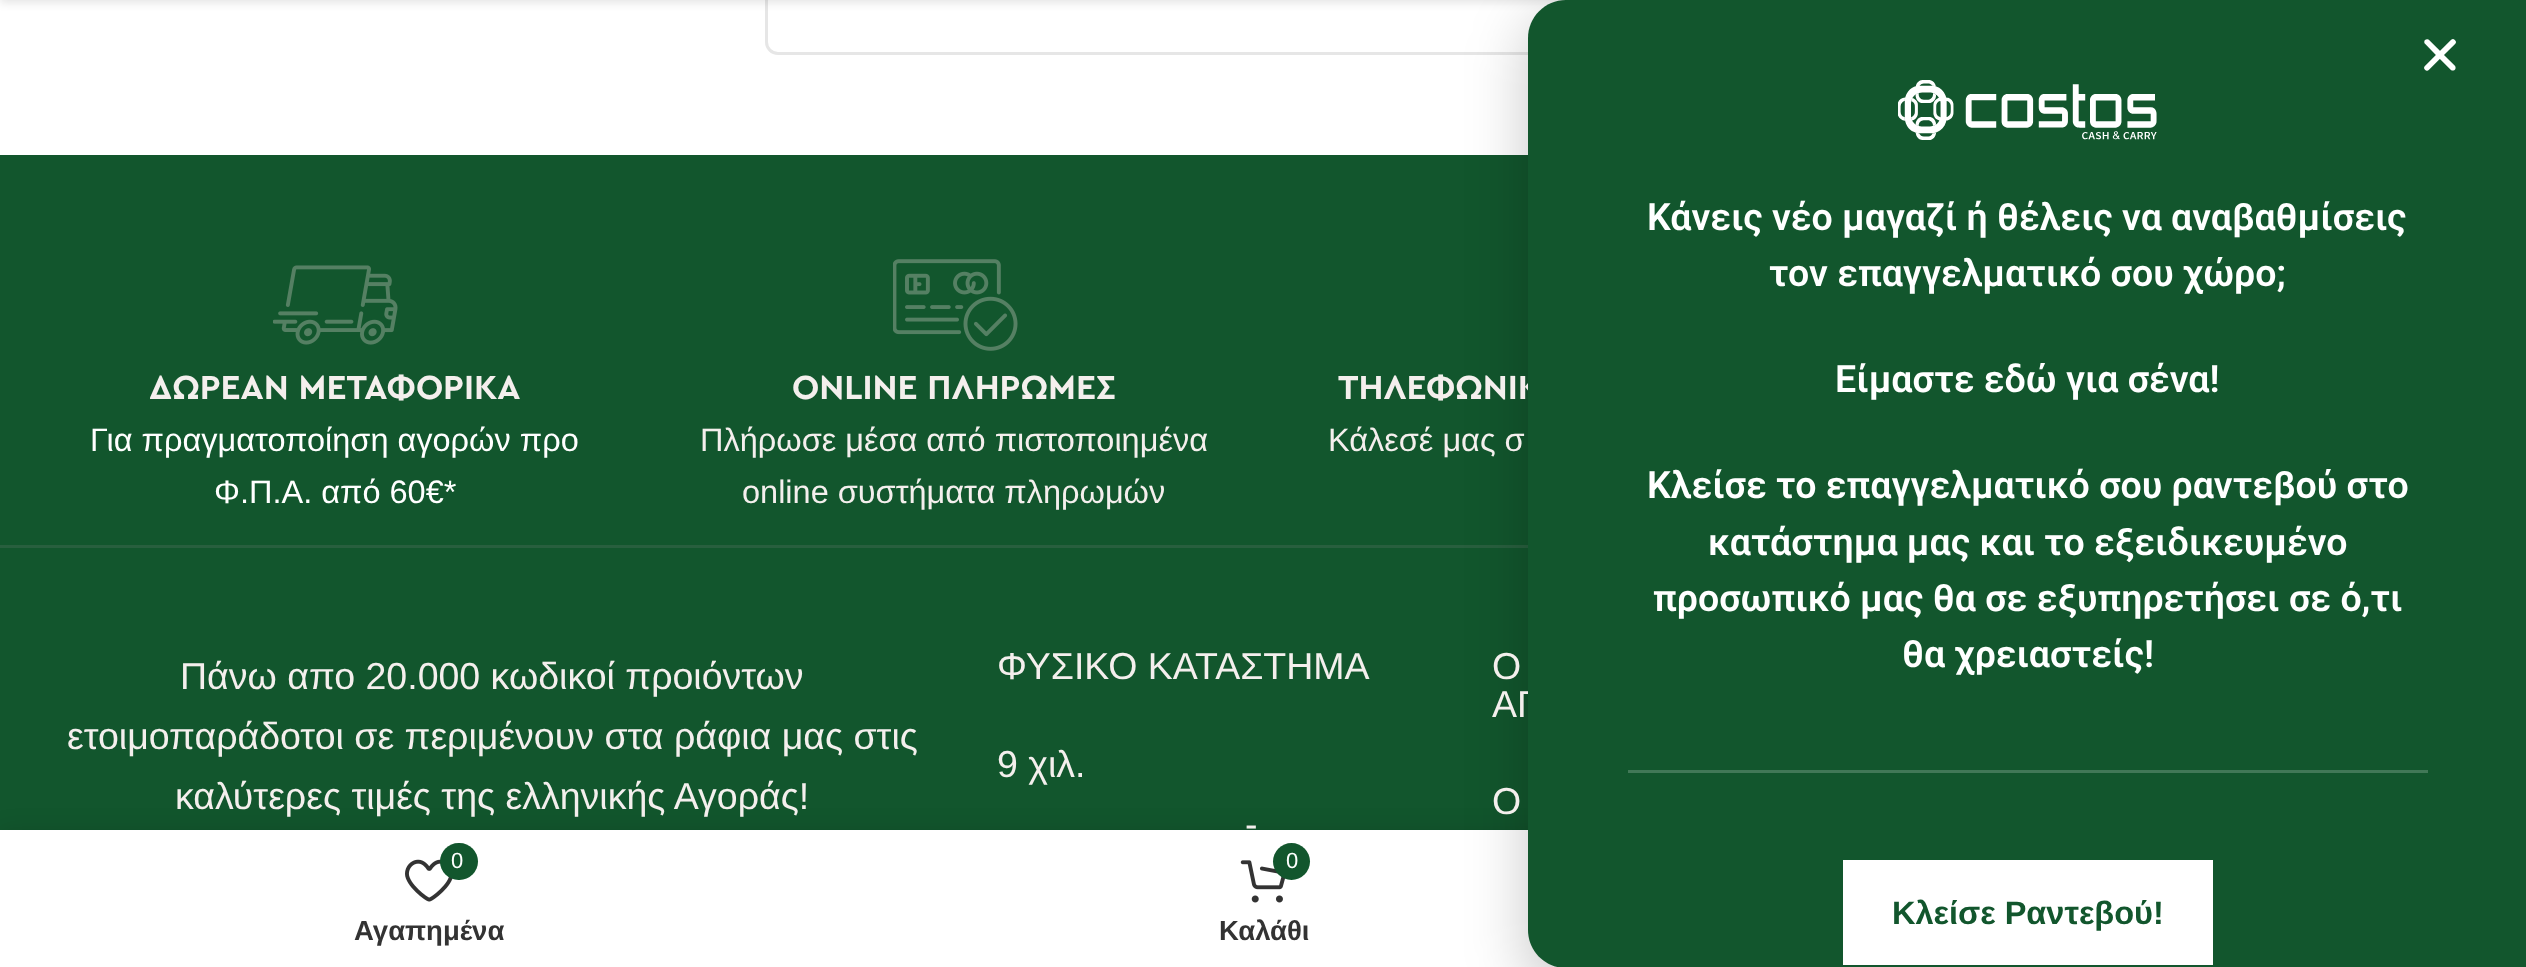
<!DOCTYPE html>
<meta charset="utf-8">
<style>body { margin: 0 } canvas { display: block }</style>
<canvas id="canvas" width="2526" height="967"></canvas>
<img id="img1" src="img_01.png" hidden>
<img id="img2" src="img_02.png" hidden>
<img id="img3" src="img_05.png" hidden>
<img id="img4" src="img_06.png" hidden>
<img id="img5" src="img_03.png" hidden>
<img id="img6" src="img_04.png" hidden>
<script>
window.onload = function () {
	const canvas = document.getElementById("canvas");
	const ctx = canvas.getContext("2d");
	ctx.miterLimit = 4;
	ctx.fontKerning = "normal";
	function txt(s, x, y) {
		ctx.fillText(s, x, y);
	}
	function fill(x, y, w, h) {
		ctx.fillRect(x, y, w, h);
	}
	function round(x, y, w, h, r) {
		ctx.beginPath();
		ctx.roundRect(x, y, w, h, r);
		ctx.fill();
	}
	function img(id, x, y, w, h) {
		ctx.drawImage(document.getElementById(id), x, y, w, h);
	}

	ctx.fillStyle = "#FFFFFF";
	fill(0, 0, 2526, 967);
	ctx.beginPath();
	ctx.roundRect(766.5, -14.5, 997, 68, 11.5);
	ctx.strokeStyle = "#E6E6E6";
	ctx.lineWidth = 3;
	ctx.stroke();
	ctx.fillStyle = "rgba(0, 0, 0, 0.1)";
	ctx.filter = "blur(4px)";
	ctx.beginPath();
	ctx.rect(0, -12, 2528, 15);
	ctx.fill();
	ctx.filter = "none";
	ctx.fillStyle = "#12562D";
	fill(0, 155, 1528, 390);
	ctx.fillStyle = "#285F3E";
	fill(0, 545, 1528, 3);
	img("img1", 273, 265, 125, 80);
	img("img2", 893, 259, 125, 92);
	ctx.fillStyle = "#12562D";
	fill(0, 548, 1528, 282);
	ctx.fillStyle = "rgba(0, 0, 0, 0.12)";
	ctx.filter = "blur(11px)";
	ctx.beginPath();
	ctx.rect(0, 830, 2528, 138);
	ctx.fill();
	ctx.filter = "none";
	ctx.fillStyle = "#FFFFFF";
	fill(0, 830, 1558, 137);
	ctx.fillStyle = "rgba(0, 0, 0, 0.2)";
	ctx.filter = "blur(29px)";
	ctx.beginPath();
	ctx.roundRect(1525, 13, 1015, 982, 45);
	ctx.fill();
	ctx.filter = "none";
	img("img3", 405, 859, 48, 43);
	ctx.fillStyle = "#12562D";
	round(440, 843, 38, 37, 18.5);
	img("img4", 1240, 860, 46, 43);
	ctx.beginPath();
	ctx.arc(1291.5, 861.5, 18.5, 0, Math.PI * 2);
	ctx.fill();
	ctx.font = "bold 35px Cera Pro";
	ctx.fillStyle = "#F4EFED";
	txt("ΔΩΡΕΑΝ ΜΕΤΑΦΟΡΙΚΑ", 149, 399);
	ctx.font = "32.5px Liberation Sans";
	ctx.fillStyle = "#FFFFFF";
	txt("Για πραγματοποίηση αγορών προ", 90, 451);
	txt("Φ.Π.Α. από 60€*", 214, 503);
	ctx.font = "bold 35px Cera Pro";
	ctx.fillStyle = "#F4EFED";
	txt("ONLINE ΠΛΗΡΩΜΕΣ", 792, 399);
	ctx.font = "32.5px Liberation Sans";
	txt("Πλήρωσε μέσα από πιστοποιημένα", 700, 451);
	txt("online συστήματα πληρωμών", 742, 503);
	ctx.font = "bold 35px Cera Pro";
	txt("ΤΗΛΕΦΩΝΙΚ", 1338, 399);
	ctx.font = "32.5px Liberation Sans";
	txt("Κάλεσέ μας σ", 1328, 451);
	ctx.font = "37.5px Liberation Sans";
	txt("Πάνω απο 20.000 κωδικοί προιόντων", 180, 689);
	txt("ετοιμοπαράδοτοι σε περιμένουν στα ράφια μας στις", 67, 749);
	txt("καλύτερες τιμές της ελληνικής Αγοράς!", 175, 809);
	txt("ΦΥΣΙΚΟ ΚΑΤΑΣΤΗΜΑ", 997, 679);
	txt("9 χιλ.", 997, 777);
	txt("-", 1245, 837);
	txt("O", 1492, 679);
	txt("ΑΓ", 1492, 717);
	txt("Ο", 1492, 814);
	ctx.fillStyle = "#12562D";
	ctx.beginPath();
	ctx.moveTo(1566, 0);
	ctx.lineTo(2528, 0);
	ctx.lineTo(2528, 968);
	ctx.lineTo(1566, 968);
	ctx.bezierCurveTo(1545, 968, 1528, 951, 1528, 930);
	ctx.lineTo(1528, 38);
	ctx.bezierCurveTo(1528, 17, 1545, 0, 1566, 0);
	ctx.closePath();
	ctx.fill();
	img("img5", 2424, 39, 32, 32);
	img("img6", 1898, 80, 259, 60);
	ctx.font = "600 37.5px Roboto";
	ctx.fillStyle = "#FFFFFF";
	txt("Κάνεις νέο μαγαζί ή θέλεις να αναβαθμίσεις", 1647, 230);
	txt("τον επαγγελματικό σου χώρο;", 1769, 286);
	txt("Είμαστε εδώ για σένα!", 1835, 392);
	txt("Kλείσε το επαγγελματικό σου ραντεβού στο", 1647, 498);
	txt("κατάστημα μας και το εξειδικευμένο", 1708, 555);
	txt("προσωπικό μας θα σε εξυπηρετήσει σε ό,τι", 1653, 611);
	txt("θα χρειαστείς!", 1902, 667);
	ctx.fillStyle = "#417857";
	fill(1628, 770, 800, 3);
	ctx.fillStyle = "#FFFFFF";
	fill(1843, 860, 370, 105);
	ctx.font = "bold 32.5px Liberation Sans";
	ctx.fillStyle = "#12562D";
	txt("Κλείσε Ραντεβού!", 1892, 924);
	ctx.font = "22px Liberation Sans";
	ctx.fillStyle = "#FFFFFF";
	txt("0", 451, 868);
	ctx.font = "bold 27.5px Liberation Sans";
	ctx.fillStyle = "#333333";
	txt("Αγαπημένα", 354, 940);
	ctx.font = "22px Liberation Sans";
	ctx.fillStyle = "#FFFFFF";
	txt("0", 1286, 868);
	ctx.font = "bold 27.5px Liberation Sans";
	ctx.fillStyle = "#333333";
	txt("Καλάθι", 1219, 940);
};
</script>
